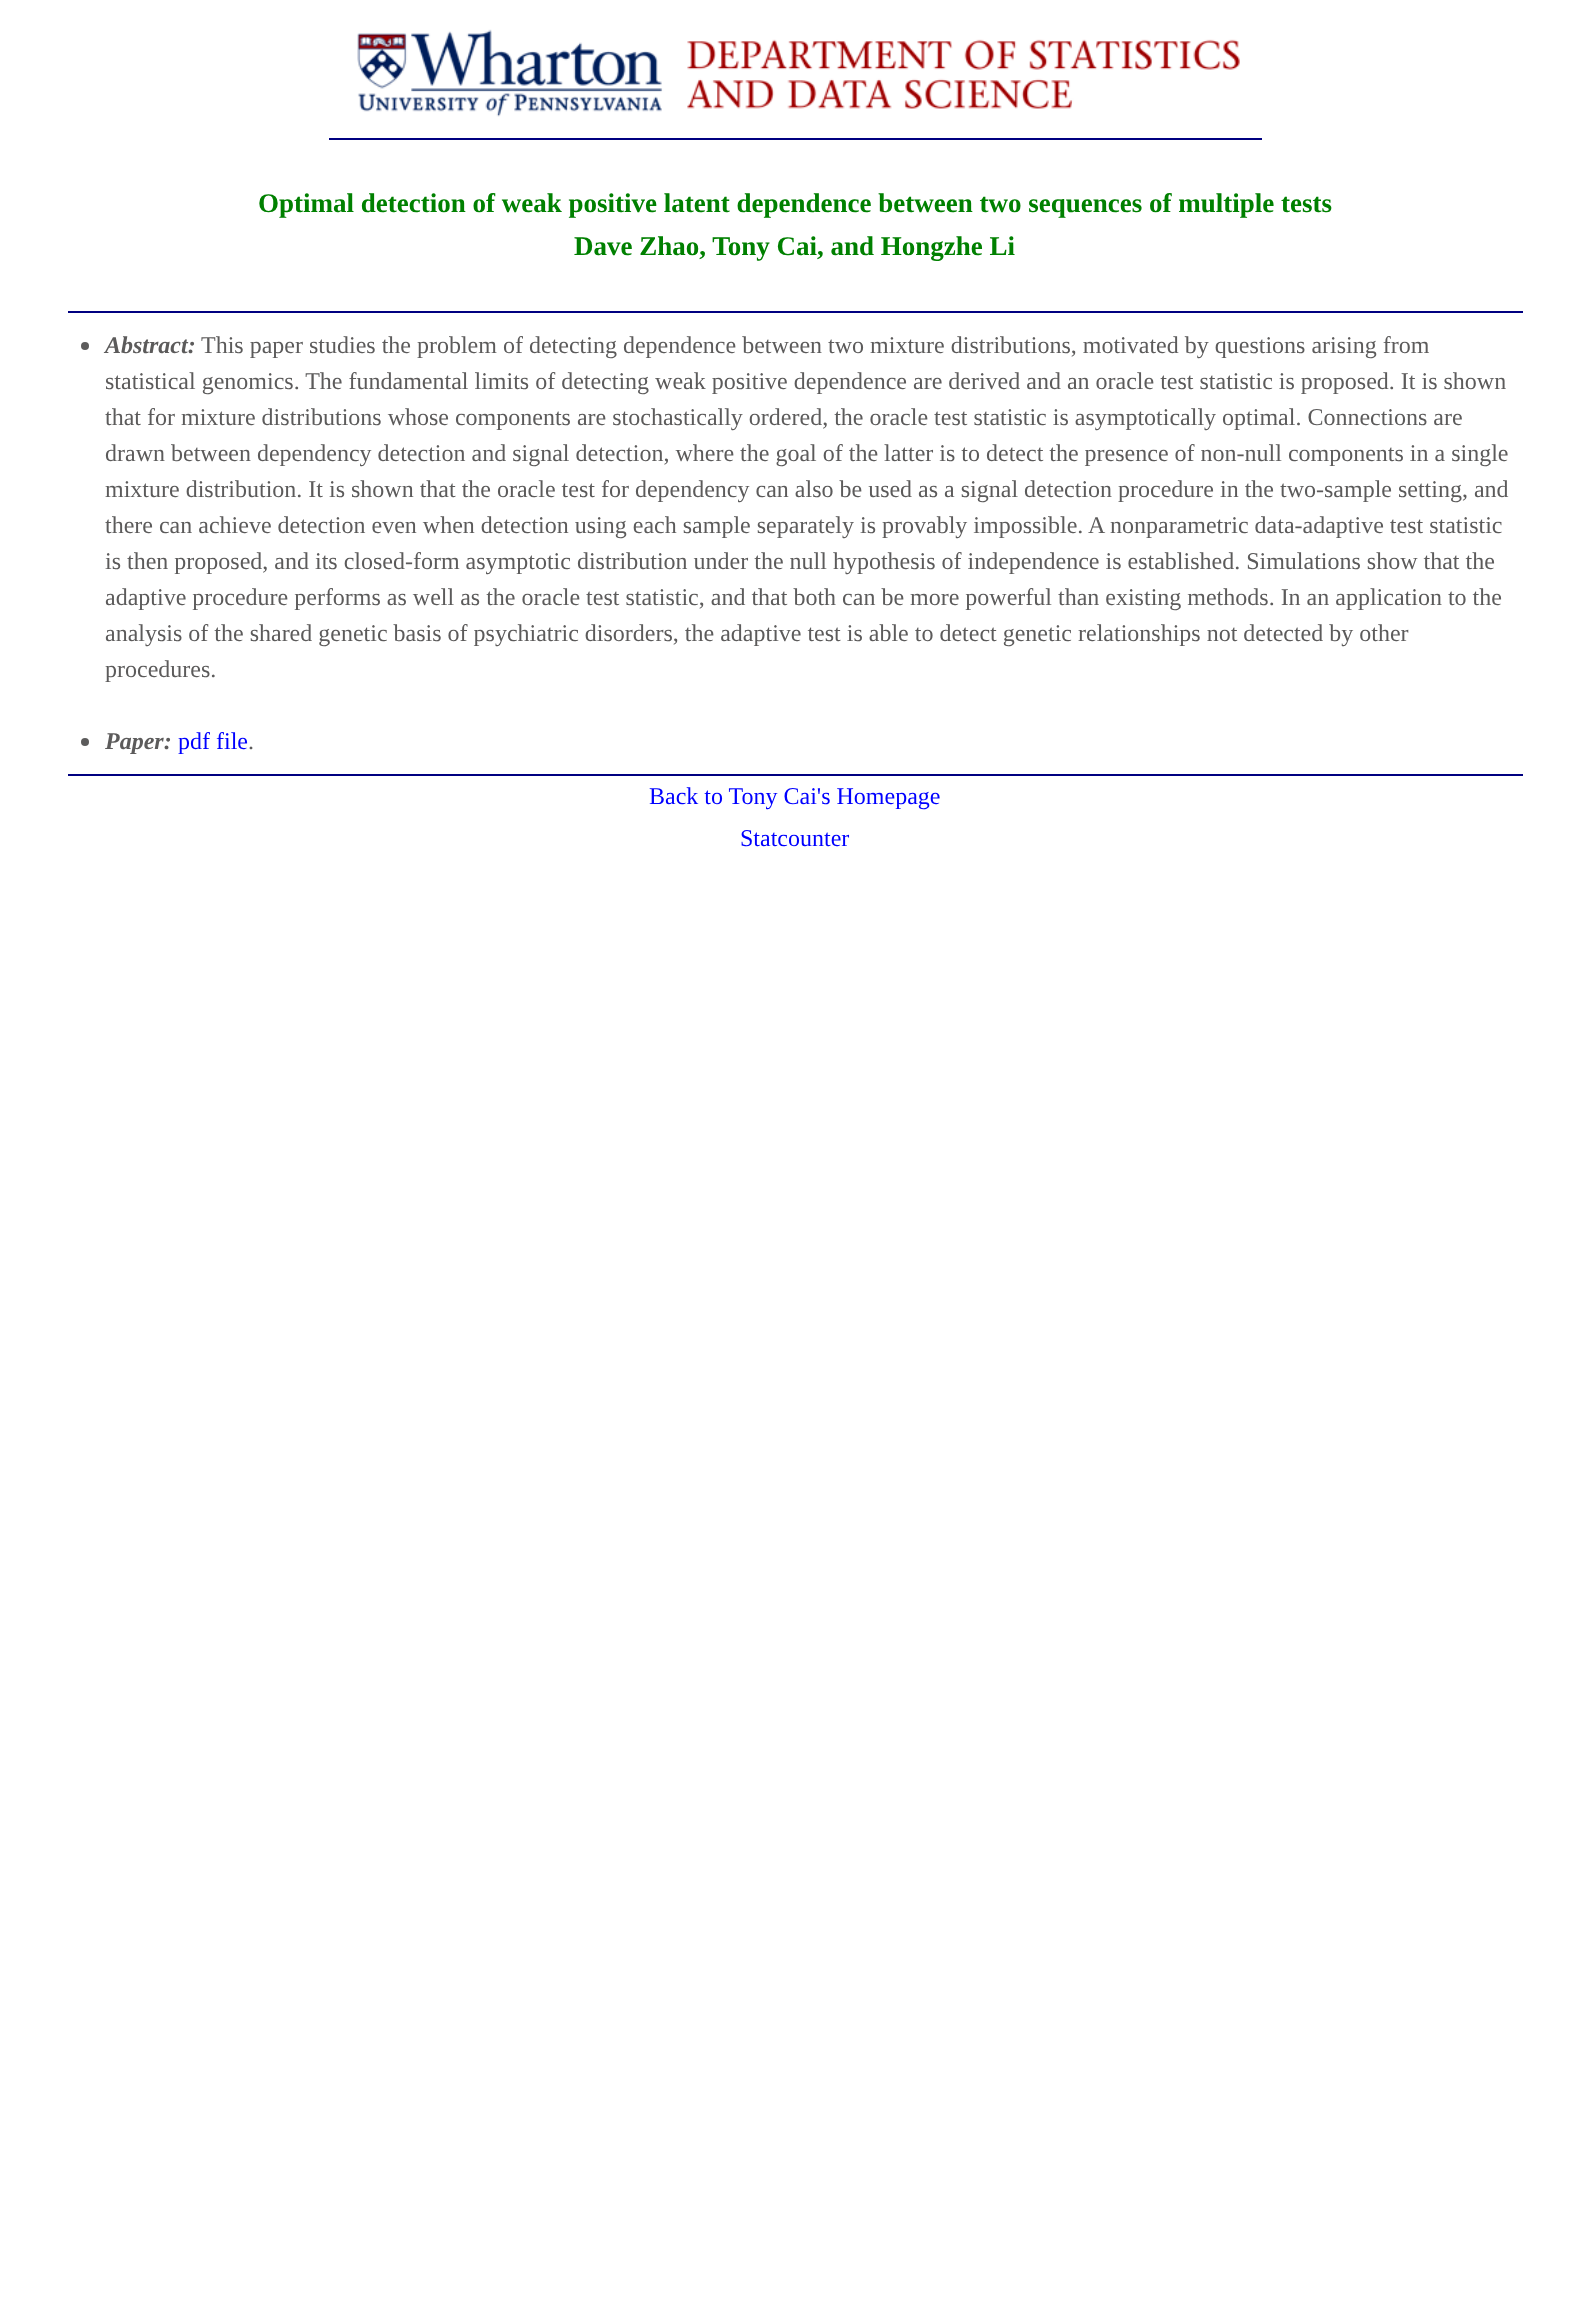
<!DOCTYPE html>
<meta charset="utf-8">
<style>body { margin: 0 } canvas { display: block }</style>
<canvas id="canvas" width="1590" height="2315"></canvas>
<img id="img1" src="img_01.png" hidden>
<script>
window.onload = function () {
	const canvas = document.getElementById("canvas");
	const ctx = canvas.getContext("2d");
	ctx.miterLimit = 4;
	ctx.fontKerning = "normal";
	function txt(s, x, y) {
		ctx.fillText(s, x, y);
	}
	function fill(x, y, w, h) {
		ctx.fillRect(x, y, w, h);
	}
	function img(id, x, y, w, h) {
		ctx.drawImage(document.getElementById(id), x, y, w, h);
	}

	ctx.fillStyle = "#FFFFFF";
	fill(0, 0, 1590, 2315);
	img("img1", 357, 29, 883, 88);
	ctx.fillStyle = "#000080";
	fill(329, 138, 933, 2);
	fill(68, 311, 1455, 2);
	ctx.fillStyle = "#5C5B5B";
	ctx.beginPath();
	ctx.arc(85, 346, 4, 0, Math.PI * 2);
	ctx.fill();
	ctx.beginPath();
	ctx.arc(85, 742, 4, 0, Math.PI * 2);
	ctx.fill();
	ctx.fillStyle = "#000080";
	fill(68, 774, 1455, 2);
	ctx.font = "bold 27px Liberation Serif";
	ctx.fillStyle = "#008000";
	txt("Optimal detection of weak positive latent dependence between two sequences of multiple tests", 258, 212);
	txt("Dave Zhao, Tony Cai, and Hongzhe Li", 574, 255);
	ctx.font = "italic bold 24px Liberation Serif";
	ctx.fillStyle = "#5C5B5B";
	txt("Abstract:", 105, 353);
	ctx.font = "24px Liberation Serif";
	txt("This paper studies the problem of detecting dependence between two mixture distributions, motivated by questions arising from", 201, 353);
	txt("statistical genomics. The fundamental limits of detecting weak positive dependence are derived and an oracle test statistic is proposed. It is shown", 105, 389);
	txt("that for mixture distributions whose components are stochastically ordered, the oracle test statistic is asymptotically optimal. Connections are", 105, 425);
	txt("drawn between dependency detection and signal detection, where the goal of the latter is to detect the presence of non-null components in a single", 105, 461);
	txt("mixture distribution. It is shown that the oracle test for dependency can also be used as a signal detection procedure in the two-sample setting, and", 105, 497);
	txt("there can achieve detection even when detection using each sample separately is provably impossible. A nonparametric data-adaptive test statistic", 105, 533);
	txt("is then proposed, and its closed-form asymptotic distribution under the null hypothesis of independence is established. Simulations show that the", 105, 569);
	txt("adaptive procedure performs as well as the oracle test statistic, and that both can be more powerful than existing methods. In an application to the", 105, 605);
	txt("analysis of the shared genetic basis of psychiatric disorders, the adaptive test is able to detect genetic relationships not detected by other", 105, 641);
	txt("procedures.", 105, 677);
	ctx.font = "italic bold 24px Liberation Serif";
	txt("Paper:", 105, 749);
	ctx.font = "24px Liberation Serif";
	ctx.fillStyle = "#0000FF";
	txt("pdf file", 178, 749);
	ctx.fillStyle = "#5C5B5B";
	txt(".", 248, 749);
	ctx.fillStyle = "#0000FF";
	txt("Back to Tony Cai's Homepage", 649, 804);
	txt("Statcounter", 740, 846);
};
</script>
